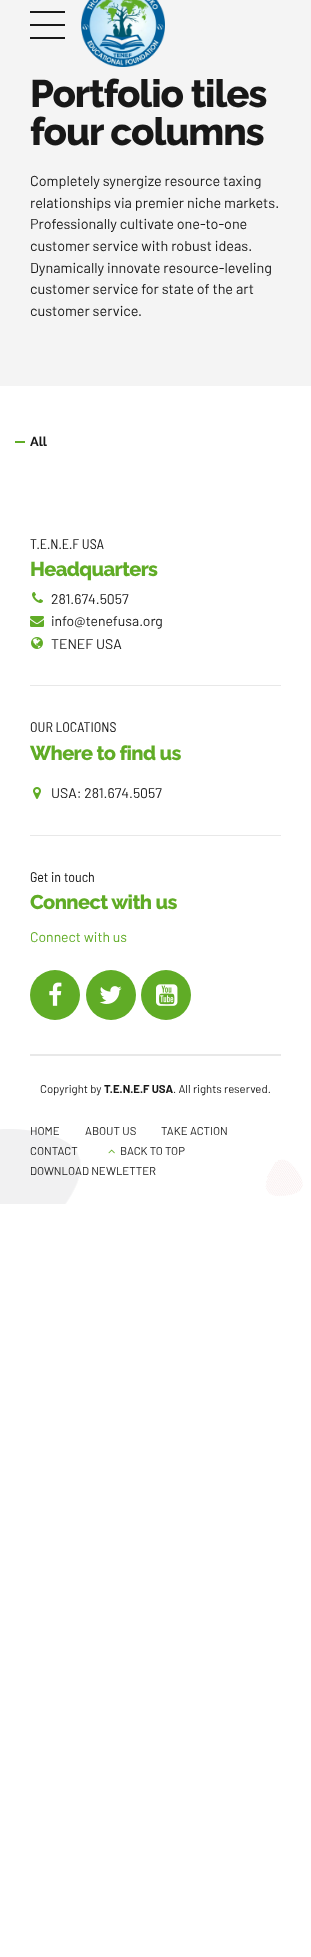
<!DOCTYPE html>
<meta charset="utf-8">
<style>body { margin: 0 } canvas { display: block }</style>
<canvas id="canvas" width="311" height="1957"></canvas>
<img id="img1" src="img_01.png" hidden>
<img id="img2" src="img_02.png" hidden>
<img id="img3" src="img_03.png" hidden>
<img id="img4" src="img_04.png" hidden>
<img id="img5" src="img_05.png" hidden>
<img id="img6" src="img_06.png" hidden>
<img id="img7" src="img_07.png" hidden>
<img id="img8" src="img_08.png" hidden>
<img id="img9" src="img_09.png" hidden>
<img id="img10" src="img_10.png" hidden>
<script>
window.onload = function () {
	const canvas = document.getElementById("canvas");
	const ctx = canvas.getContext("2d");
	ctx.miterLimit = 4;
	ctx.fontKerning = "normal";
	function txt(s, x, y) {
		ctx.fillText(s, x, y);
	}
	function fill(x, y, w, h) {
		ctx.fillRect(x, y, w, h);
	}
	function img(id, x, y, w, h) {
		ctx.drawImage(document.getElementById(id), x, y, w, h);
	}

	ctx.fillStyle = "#FFFFFF";
	fill(0, 0, 311, 1957);
	ctx.fillStyle = "#F4F4F4";
	fill(0, 0, 311, 386);
	ctx.fillStyle = "#181818";
	fill(30, 11, 35, 2);
	fill(30, 24, 35, 2);
	fill(30, 37, 35, 2);
	img("img1", 81, 0, 84, 67);
	ctx.fillStyle = "#60AC26";
	fill(15, 441, 10, 2);
	img("img2", 0, 1129, 303, 75);
	img("img3", 32, 592, 11, 11);
	img("img4", 30, 616, 14, 11);
	img("img5", 31, 637, 12, 12);
	ctx.fillStyle = "#E8E8E8";
	fill(30, 685, 251, 1);
	img("img6", 33, 787, 8, 12);
	fill(30, 835, 251, 1);
	ctx.fillStyle = "#60AC26";
	ctx.beginPath();
	ctx.arc(55, 995, 25, 0, Math.PI * 2);
	ctx.fill();
	img("img7", 49, 982, 13, 24);
	ctx.beginPath();
	ctx.arc(111, 995, 25, 0, Math.PI * 2);
	ctx.fill();
	img("img8", 99, 986, 23, 18);
	ctx.beginPath();
	ctx.arc(166, 995, 25, 0, Math.PI * 2);
	ctx.fill();
	img("img9", 156, 984, 22, 22);
	ctx.fillStyle = "#E8E8E8";
	fill(30, 1054, 251, 2);
	img("img10", 108, 1149, 7, 5);
	ctx.letterSpacing = "-1.1px";
	ctx.font = "800 38.5px Raleway";
	ctx.fillStyle = "#181818";
	txt("Portfolio tiles", 30, 107);
	txt("four columns", 30, 145);
	ctx.letterSpacing = "0px";
	ctx.font = "14.4px Barlow";
	txt("Completely synergize resource taxing", 30, 186);
	txt("relationships via premier niche markets.", 30, 208);
	txt("Professionally cultivate one-to-one", 30, 229);
	txt("customer service with robust ideas.", 30, 251);
	txt("Dynamically innovate resource-leveling", 30, 273);
	txt("customer service for state of the art", 30, 294);
	txt("customer service.", 30, 316);
	ctx.font = "bold 13px Raleway";
	txt("All", 30, 446);
	ctx.font = "14px Barlow Semi Condensed";
	txt("T.E.N.E.F USA", 30, 549);
	ctx.letterSpacing = "-0.6px";
	ctx.font = "800 20px Raleway";
	ctx.fillStyle = "#60AC26";
	txt("Headquarters", 30, 576);
	ctx.letterSpacing = "0px";
	ctx.font = "14px Barlow";
	ctx.fillStyle = "#181818";
	txt("281.674.5057", 51, 604);
	txt("info@tenefusa.org", 51, 626);
	txt("TENEF USA", 51, 649);
	ctx.font = "14px Barlow Semi Condensed";
	txt("OUR LOCATIONS", 30, 732);
	ctx.letterSpacing = "-0.6px";
	ctx.font = "800 20px Raleway";
	ctx.fillStyle = "#60AC26";
	txt("Where to find us", 30, 760);
	ctx.letterSpacing = "0px";
	ctx.font = "14px Barlow";
	ctx.fillStyle = "#181818";
	txt("USA: 281.674.5057", 51, 798);
	ctx.font = "14px Barlow Semi Condensed";
	txt("Get in touch", 30, 882);
	ctx.letterSpacing = "-0.6px";
	ctx.font = "800 20px Raleway";
	ctx.fillStyle = "#60AC26";
	txt("Connect with us", 30, 909);
	ctx.letterSpacing = "0px";
	ctx.font = "14px Barlow";
	txt("Connect with us", 30, 942);
	ctx.font = "11.4px Barlow";
	ctx.fillStyle = "#181818";
	txt("Copyright by", 40, 1093);
	ctx.font = "bold 11.4px Barlow";
	txt("T.E.N.E.F USA", 104, 1093);
	ctx.font = "11.4px Barlow";
	txt(". All rights reserved.", 173, 1093);
	txt("HOME", 30, 1135);
	txt("ABOUT US", 85, 1135);
	txt("TAKE ACTION", 161, 1135);
	txt("CONTACT", 30, 1155);
	txt("BACK TO TOP", 120, 1155);
	txt("DOWNLOAD NEWLETTER", 30, 1175);
};
</script>
